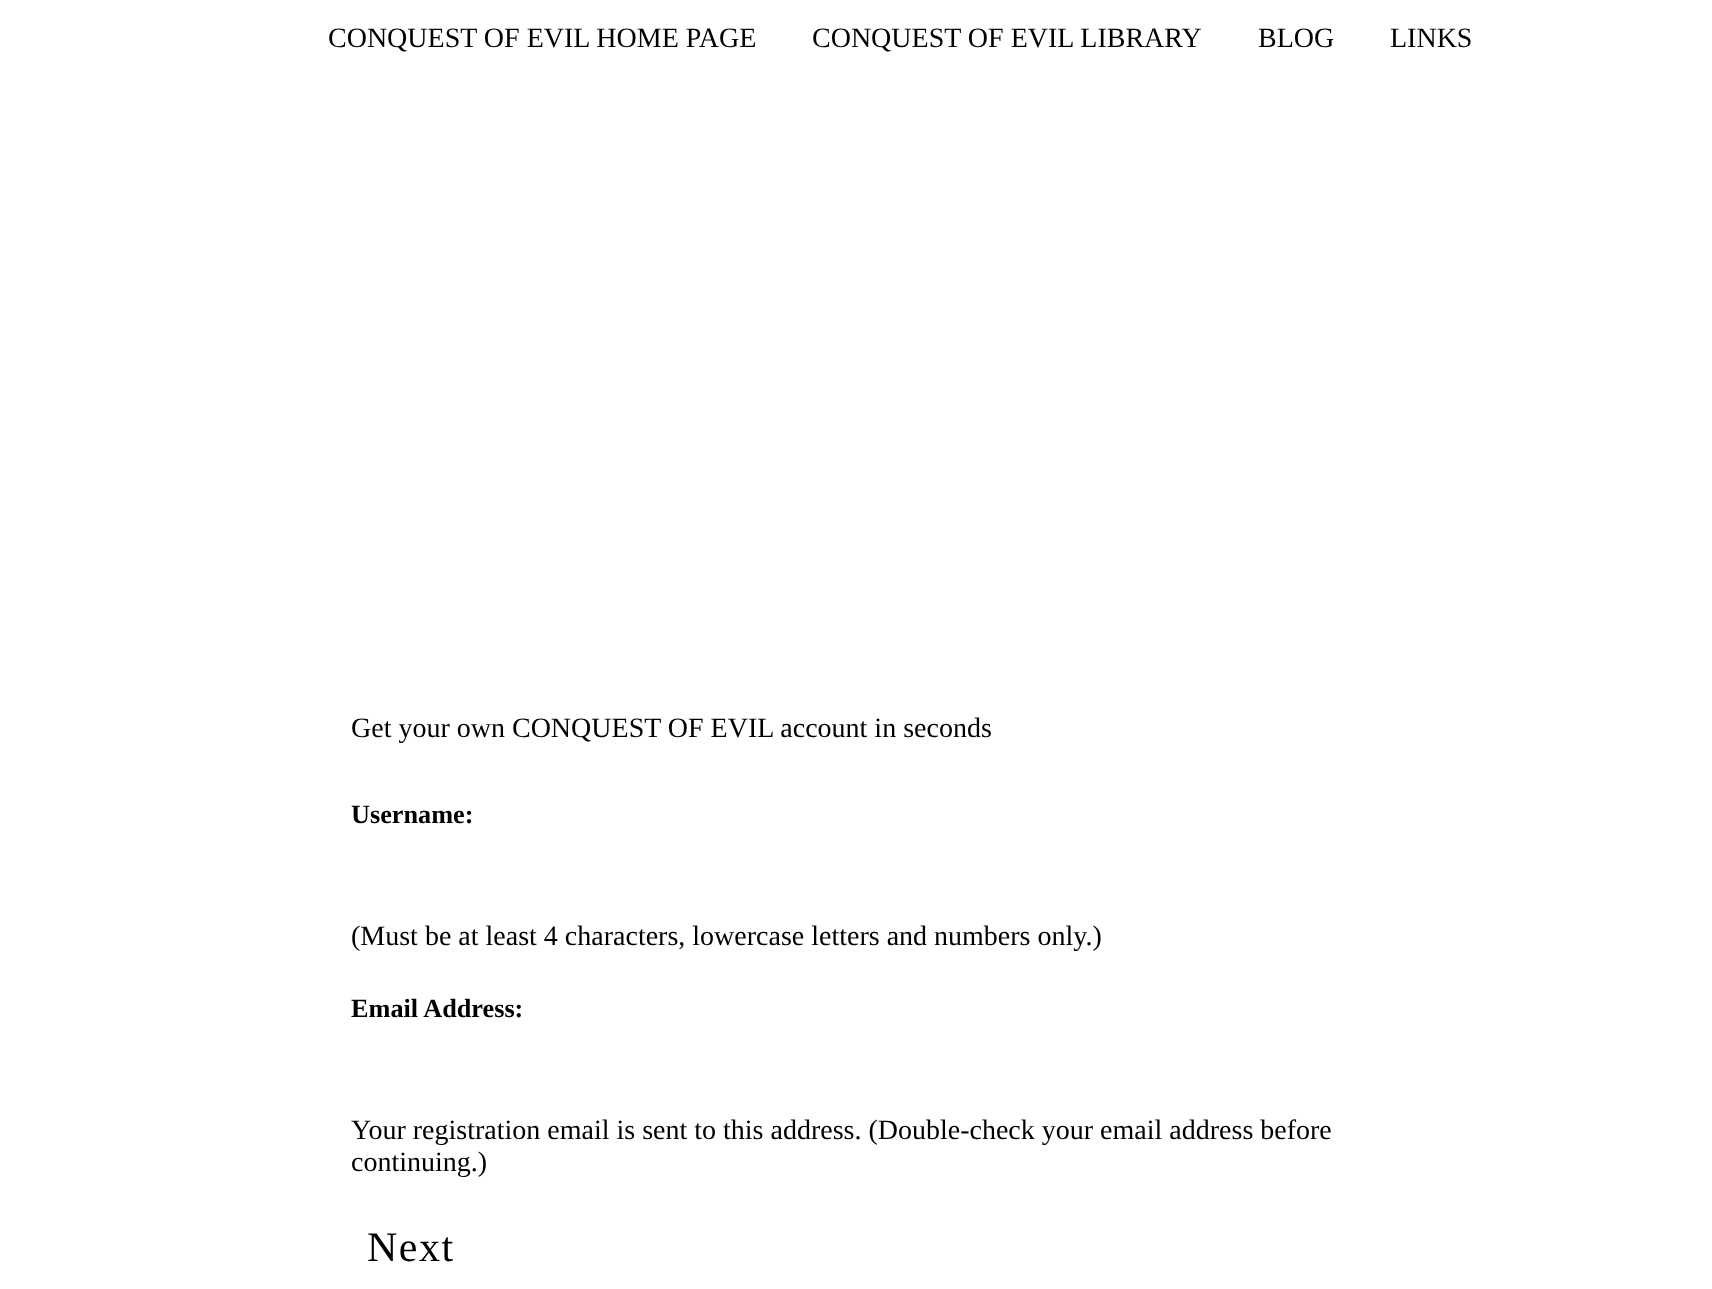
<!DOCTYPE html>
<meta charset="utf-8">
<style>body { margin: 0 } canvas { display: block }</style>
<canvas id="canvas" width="1712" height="1289"></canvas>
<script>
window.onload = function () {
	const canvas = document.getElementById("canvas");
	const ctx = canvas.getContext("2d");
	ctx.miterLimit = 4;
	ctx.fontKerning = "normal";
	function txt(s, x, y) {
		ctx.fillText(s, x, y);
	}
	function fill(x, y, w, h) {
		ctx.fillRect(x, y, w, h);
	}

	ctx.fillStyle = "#FFFFFF";
	fill(0, 0, 1712, 1289);
	ctx.font = "28px Liberation Serif";
	ctx.fillStyle = "#000000";
	txt("CONQUEST OF EVIL HOME PAGE", 328, 47);
	txt("CONQUEST OF EVIL LIBRARY", 812, 47);
	txt("BLOG", 1258, 47);
	txt("LINKS", 1390, 47);
	txt("Get your own CONQUEST OF EVIL account in seconds", 351, 737);
	ctx.font = "bold 26.25px Liberation Serif";
	txt("Username:", 351, 823);
	ctx.font = "28px Liberation Serif";
	txt("(Must be at least 4 characters, lowercase letters and numbers only.)", 351, 945);
	ctx.font = "bold 26.25px Liberation Serif";
	txt("Email Address:", 351, 1017);
	ctx.font = "28px Liberation Serif";
	txt("Your registration email is sent to this address. (Double-check your email address before", 351, 1139);
	txt("continuing.)", 351, 1171);
	ctx.letterSpacing = "1.5px";
	ctx.font = "42px Liberation Serif";
	txt("Next", 367, 1261);
};
</script>
